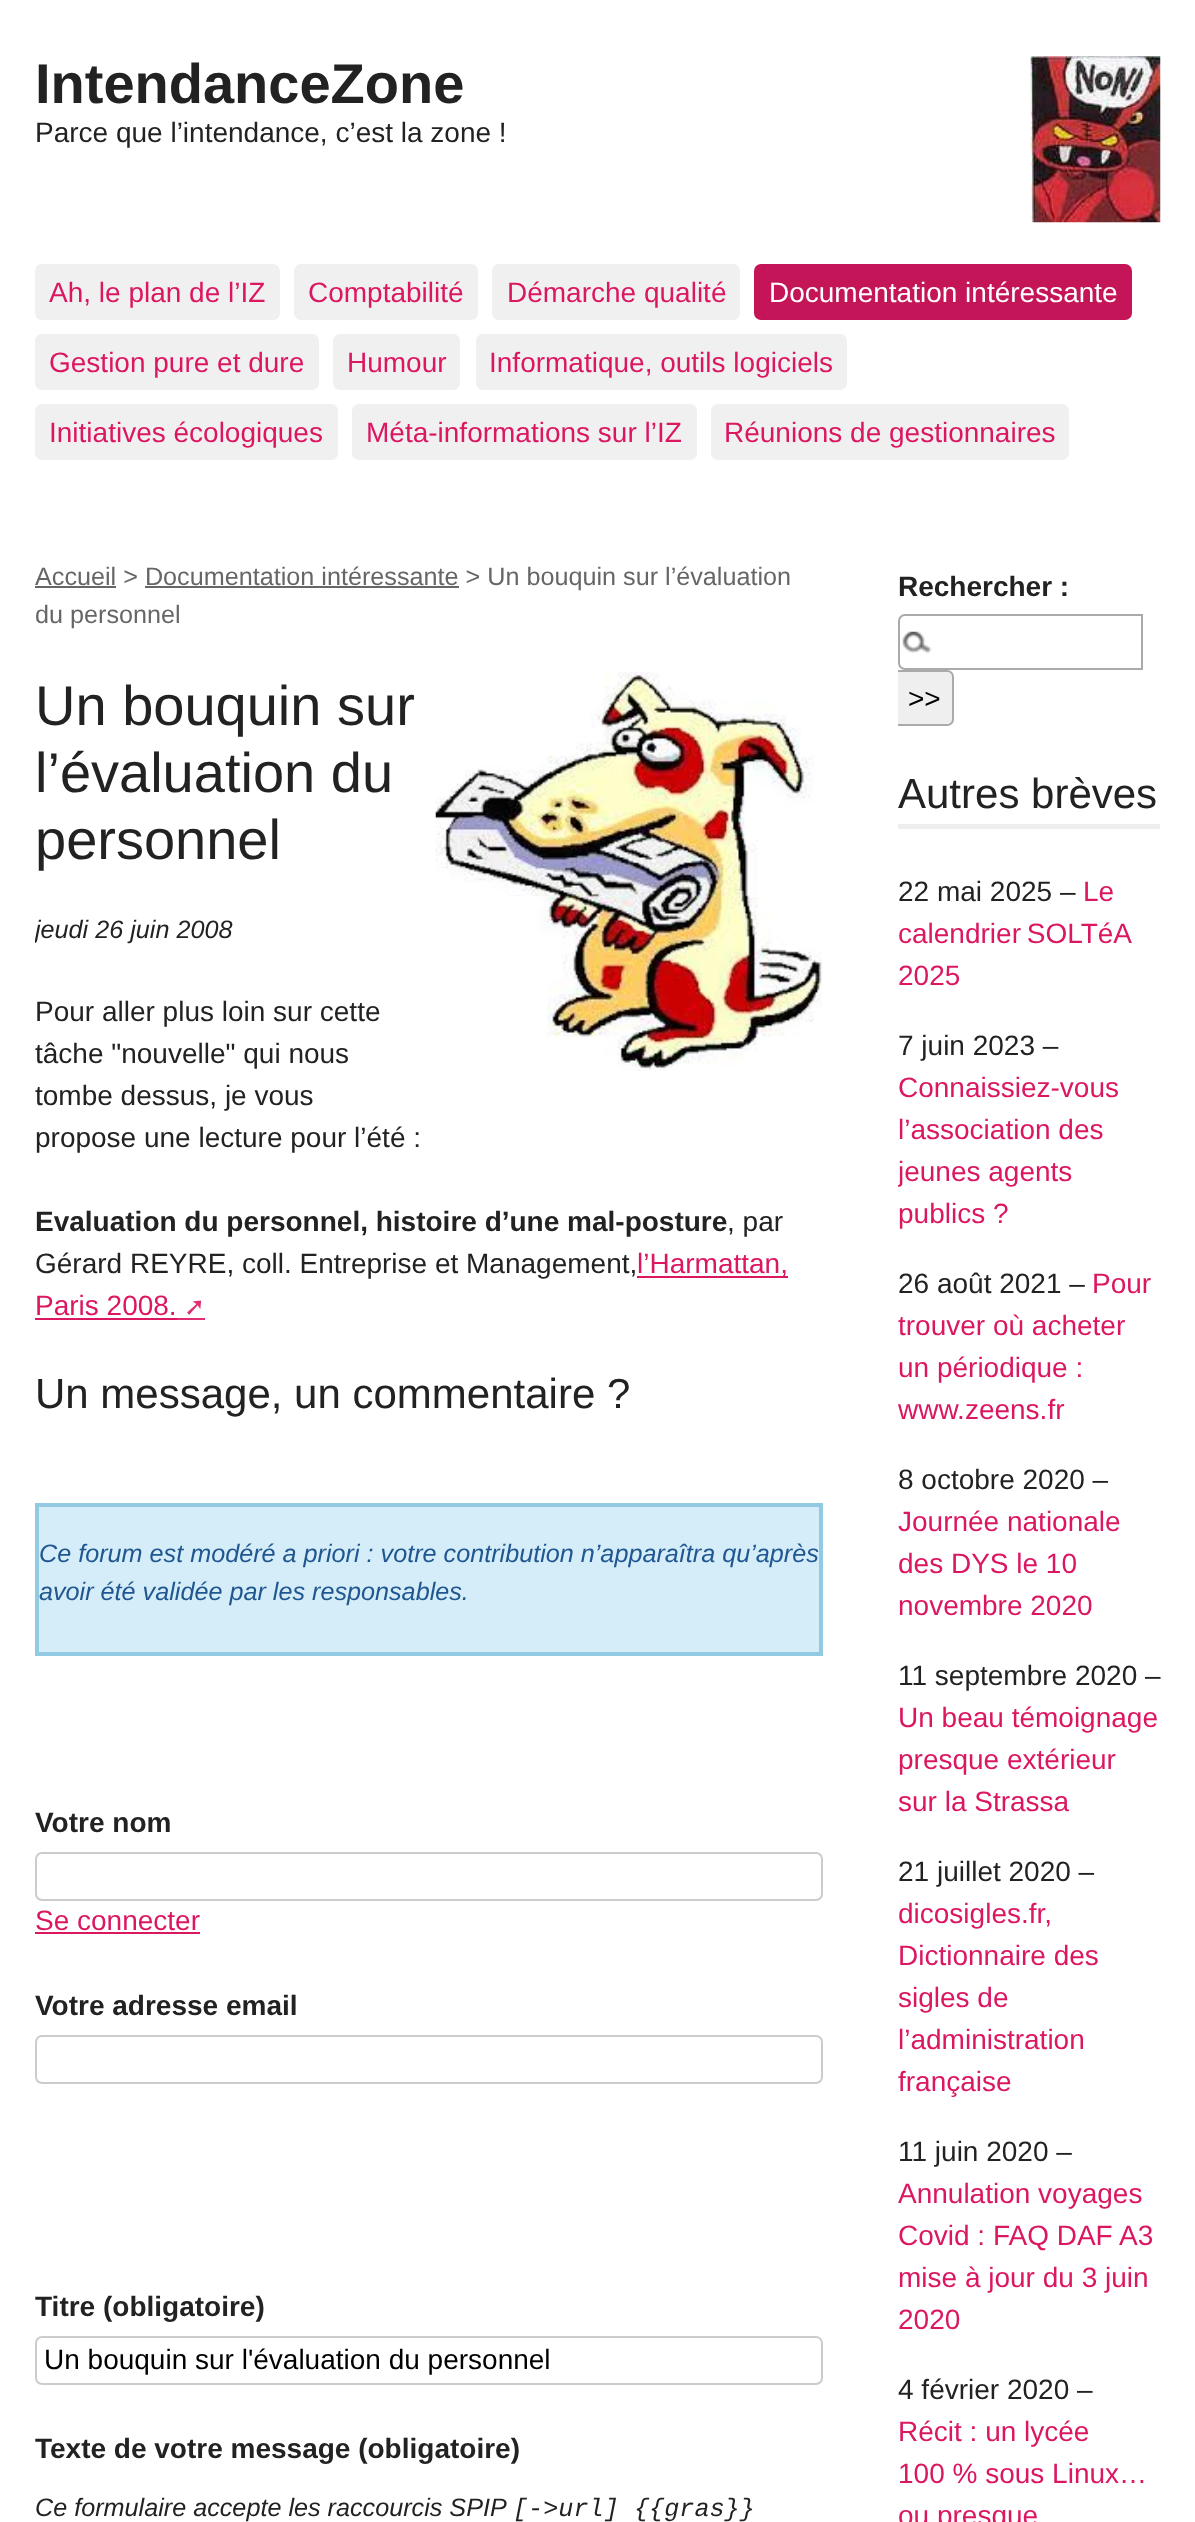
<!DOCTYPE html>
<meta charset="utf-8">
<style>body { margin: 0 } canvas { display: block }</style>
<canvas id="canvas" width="1195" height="2522"></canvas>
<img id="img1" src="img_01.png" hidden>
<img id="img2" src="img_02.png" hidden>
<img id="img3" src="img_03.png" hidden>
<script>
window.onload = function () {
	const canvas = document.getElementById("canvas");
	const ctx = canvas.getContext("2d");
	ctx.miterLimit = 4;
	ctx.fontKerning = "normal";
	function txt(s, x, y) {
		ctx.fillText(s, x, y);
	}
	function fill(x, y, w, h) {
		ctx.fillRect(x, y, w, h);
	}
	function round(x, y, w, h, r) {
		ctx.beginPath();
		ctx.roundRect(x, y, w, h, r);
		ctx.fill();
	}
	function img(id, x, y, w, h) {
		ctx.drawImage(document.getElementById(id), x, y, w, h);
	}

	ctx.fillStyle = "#FFFFFF";
	fill(0, 0, 1195, 2522);
	img("img1", 1030, 56, 131, 167);
	ctx.fillStyle = "#F0F0F0";
	round(35, 264, 245, 56, 7);
	round(294, 264, 184, 56, 7);
	round(492, 264, 248, 56, 7);
	ctx.fillStyle = "#C41558";
	round(754, 264, 378, 56, 7);
	ctx.fillStyle = "#F0F0F0";
	round(35, 334, 284, 56, 7);
	round(333, 334, 127, 56, 7);
	round(476, 334, 371, 56, 7);
	round(35, 404, 303, 56, 7);
	round(352, 404, 345, 56, 7);
	round(711, 404, 358, 56, 7);
	ctx.fillStyle = "#666666";
	fill(35, 586, 81, 2);
	fill(145, 586, 314, 2);
	img("img2", 435, 672, 387, 399);
	ctx.fillStyle = "#DB1762";
	fill(637, 1276, 151, 2);
	fill(35, 1318, 142, 2);
	ctx.fillStyle = "#DF2E72";
	fill(177, 1318, 28, 2);
	ctx.fillStyle = "#D5EDF8";
	ctx.beginPath();
	ctx.rect(37, 1505, 784, 149);
	ctx.fill();
	ctx.strokeStyle = "#92CAE4";
	ctx.lineWidth = 4;
	ctx.stroke();
	ctx.beginPath();
	ctx.roundRect(36, 1853, 786, 47, 6);
	ctx.strokeStyle = "#CCCCCC";
	ctx.lineWidth = 2;
	ctx.stroke();
	ctx.fillStyle = "#DB1762";
	fill(35, 1932, 165, 2);
	ctx.beginPath();
	ctx.roundRect(36, 2036, 786, 47, 6);
	ctx.stroke();
	ctx.beginPath();
	ctx.roundRect(36, 2337, 786, 47, 6);
	ctx.stroke();
	img("img3", 902, 631, 30, 22);
	ctx.beginPath();
	ctx.roundRect(899, 615, 243, 54, [6, 0, 0, 6]);
	ctx.strokeStyle = "#AAAAAA";
	ctx.stroke();
	ctx.fillStyle = "#EFEFEF";
	ctx.beginPath();
	ctx.roundRect(898, 670, 56, 56, [0, 7, 7, 0]);
	ctx.fill();
	ctx.fillStyle = "#AAAAAA";
	ctx.beginPath();
	ctx.moveTo(898, 670);
	ctx.lineTo(947, 670);
	ctx.bezierCurveTo(951, 670, 954, 673, 954, 677);
	ctx.lineTo(954, 719);
	ctx.bezierCurveTo(954, 723, 951, 726, 947, 726);
	ctx.lineTo(898, 726);
	ctx.closePath();
	ctx.moveTo(898, 672);
	ctx.lineTo(947, 672);
	ctx.bezierCurveTo(950, 672, 952, 674, 952, 677);
	ctx.lineTo(952, 719);
	ctx.bezierCurveTo(952, 722, 950, 724, 947, 724);
	ctx.lineTo(898, 724);
	ctx.closePath();
	ctx.fill("evenodd");
	ctx.fillStyle = "#EEEEEE";
	fill(898, 824, 262, 5);
	ctx.font = "bold 56px Liberation Sans";
	ctx.fillStyle = "#222222";
	txt("IntendanceZone", 35, 103);
	ctx.font = "28px Liberation Sans";
	txt("Parce que l’intendance, c’est la zone !", 35, 142);
	ctx.fillStyle = "#DB1762";
	txt("Ah, le plan de l’IZ", 49, 302);
	txt("Comptabilité", 308, 302);
	txt("Démarche qualité", 507, 302);
	ctx.fillStyle = "#FFFFFF";
	txt("Documentation intéressante", 769, 302);
	ctx.fillStyle = "#DB1762";
	txt("Gestion pure et dure", 49, 372);
	txt("Humour", 347, 372);
	txt("Informatique, outils logiciels", 489, 372);
	txt("Initiatives écologiques", 49, 442);
	txt("Méta-informations sur l’IZ", 366, 442);
	txt("Réunions de gestionnaires", 724, 442);
	ctx.font = "25.2px Liberation Sans";
	ctx.fillStyle = "#666666";
	txt("Accueil > Documentation intéressante > Un bouquin sur l’évaluation", 35, 585);
	txt("du personnel", 35, 623);
	ctx.font = "56px Liberation Sans";
	ctx.fillStyle = "#222222";
	txt("Un bouquin sur", 35, 725);
	txt("l’évaluation du", 35, 792);
	txt("personnel", 35, 859);
	ctx.save();
	ctx.beginPath();
	ctx.rect(35, 558, 788, 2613);
	ctx.clip();
	ctx.font = "italic 25.2px Liberation Sans";
	txt("jeudi 26 juin 2008", 35, 938);
	ctx.restore();
	ctx.font = "28px Liberation Sans";
	txt("Pour aller plus loin sur cette", 35, 1021);
	txt("tâche \"nouvelle\" qui nous", 35, 1063);
	txt("tombe dessus, je vous", 35, 1105);
	txt("propose une lecture pour l’été :", 35, 1147);
	ctx.font = "bold 28px Liberation Sans";
	txt("Evaluation du personnel, histoire d’une mal-posture", 35, 1231);
	ctx.font = "28px Liberation Sans";
	txt(", par", 727, 1231);
	txt("Gérard REYRE, coll. Entreprise et Management,", 35, 1273);
	ctx.fillStyle = "#DB1762";
	txt("l’Harmattan,", 637, 1273);
	txt("Paris 2008.", 35, 1315);
	ctx.font = "25.2px DejaVu Sans";
	ctx.fillStyle = "#DF2E72";
	txt("➚", 184, 1315);
	ctx.font = "42px Liberation Sans";
	ctx.fillStyle = "#222222";
	txt("Un message, un commentaire ?", 35, 1408);
	ctx.font = "italic 25.2px Liberation Sans";
	ctx.fillStyle = "#205791";
	txt("Ce forum est modéré a priori : votre contribution n’apparaîtra qu’après", 39, 1562);
	txt("avoir été validée par les responsables.", 39, 1600);
	ctx.font = "bold 28px Liberation Sans";
	ctx.fillStyle = "#222222";
	txt("Votre nom", 35, 1832);
	ctx.font = "28px Liberation Sans";
	ctx.fillStyle = "#DB1762";
	txt("Se connecter", 35, 1930);
	ctx.font = "bold 28px Liberation Sans";
	ctx.fillStyle = "#222222";
	txt("Votre adresse email", 35, 2015);
	txt("Titre (obligatoire)", 35, 2316);
	ctx.font = "28px Liberation Sans";
	ctx.fillStyle = "#000000";
	txt("Un bouquin sur l'évaluation du personnel", 44, 2369);
	ctx.font = "bold 28px Liberation Sans";
	ctx.fillStyle = "#222222";
	txt("Texte de votre message (obligatoire)", 35, 2458);
	ctx.font = "italic 25.2px Liberation Sans";
	txt("Ce formulaire accepte les raccourcis SPIP", 35, 2516);
	ctx.font = "italic 25.2px Liberation Mono";
	txt("[->url] {{gras}}", 513, 2516);
	ctx.font = "bold 28px Liberation Sans";
	txt("Rechercher :", 898, 596);
	ctx.font = "28px Liberation Sans";
	ctx.fillStyle = "#000000";
	txt(">>", 908, 708);
	ctx.font = "42px Liberation Sans";
	ctx.fillStyle = "#222222";
	txt("Autres brèves", 898, 808);
	ctx.font = "28px Liberation Sans";
	txt("22 mai 2025 –", 898, 901);
	ctx.fillStyle = "#DB1762";
	txt("Le", 1083, 901);
	ctx.wordSpacing = "-2px";
	txt("calendrier SOLTéA", 898, 943);
	ctx.wordSpacing = "0px";
	txt("2025", 898, 985);
	ctx.fillStyle = "#222222";
	txt("7 juin 2023 –", 898, 1055);
	ctx.fillStyle = "#DB1762";
	txt("Connaissiez-vous", 898, 1097);
	txt("l’association des", 898, 1139);
	ctx.save();
	ctx.beginPath();
	ctx.rect(898, 558, 262, 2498);
	ctx.clip();
	txt("jeunes agents", 898, 1181);
	ctx.restore();
	txt("publics ?", 898, 1223);
	ctx.fillStyle = "#222222";
	txt("26 août 2021 –", 898, 1293);
	ctx.fillStyle = "#DB1762";
	txt("Pour", 1092, 1293);
	txt("trouver où acheter", 898, 1335);
	txt("un périodique :", 898, 1377);
	txt("www.zeens.fr", 898, 1419);
	ctx.fillStyle = "#222222";
	txt("8 octobre 2020 –", 898, 1489);
	ctx.fillStyle = "#DB1762";
	txt("Journée nationale", 898, 1531);
	txt("des DYS le 10", 898, 1573);
	txt("novembre 2020", 898, 1615);
	ctx.fillStyle = "#222222";
	txt("11 septembre 2020 –", 898, 1685);
	ctx.fillStyle = "#DB1762";
	txt("Un beau témoignage", 898, 1727);
	txt("presque extérieur", 898, 1769);
	txt("sur la Strassa", 898, 1811);
	ctx.fillStyle = "#222222";
	txt("21 juillet 2020 –", 898, 1881);
	ctx.fillStyle = "#DB1762";
	txt("dicosigles.fr,", 898, 1923);
	txt("Dictionnaire des", 898, 1965);
	txt("sigles de", 898, 2007);
	txt("l’administration", 898, 2049);
	txt("française", 898, 2091);
	ctx.fillStyle = "#222222";
	txt("11 juin 2020 –", 898, 2161);
	ctx.fillStyle = "#DB1762";
	txt("Annulation voyages", 898, 2203);
	txt("Covid : FAQ DAF A3", 898, 2245);
	txt("mise à jour du 3 juin", 898, 2287);
	txt("2020", 898, 2329);
	ctx.fillStyle = "#222222";
	txt("4 février 2020 –", 898, 2399);
	ctx.fillStyle = "#DB1762";
	txt("Récit : un lycée", 898, 2441);
	txt("100 % sous Linux…", 898, 2483);
	txt("ou presque", 898, 2525);
};
</script>
